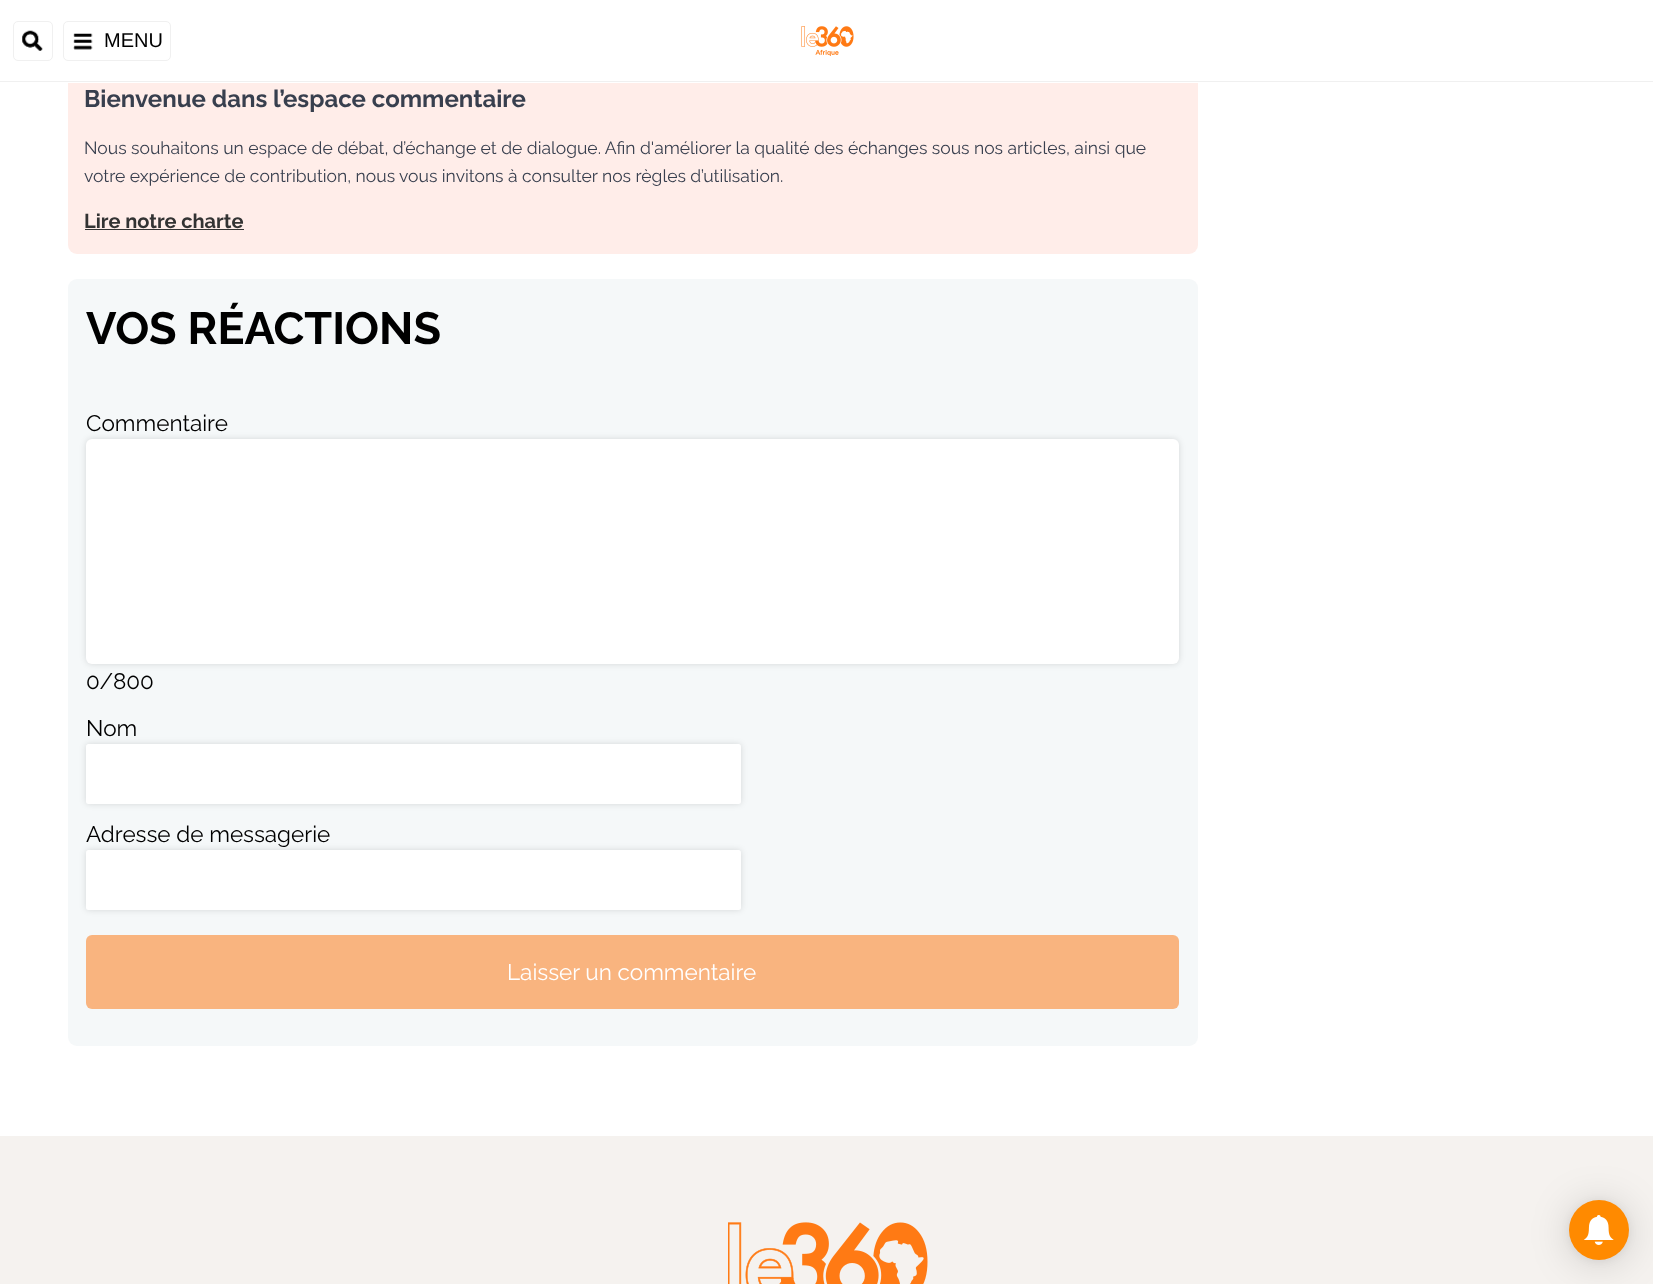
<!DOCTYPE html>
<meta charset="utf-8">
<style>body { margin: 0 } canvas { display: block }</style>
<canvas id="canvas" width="1653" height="1284"></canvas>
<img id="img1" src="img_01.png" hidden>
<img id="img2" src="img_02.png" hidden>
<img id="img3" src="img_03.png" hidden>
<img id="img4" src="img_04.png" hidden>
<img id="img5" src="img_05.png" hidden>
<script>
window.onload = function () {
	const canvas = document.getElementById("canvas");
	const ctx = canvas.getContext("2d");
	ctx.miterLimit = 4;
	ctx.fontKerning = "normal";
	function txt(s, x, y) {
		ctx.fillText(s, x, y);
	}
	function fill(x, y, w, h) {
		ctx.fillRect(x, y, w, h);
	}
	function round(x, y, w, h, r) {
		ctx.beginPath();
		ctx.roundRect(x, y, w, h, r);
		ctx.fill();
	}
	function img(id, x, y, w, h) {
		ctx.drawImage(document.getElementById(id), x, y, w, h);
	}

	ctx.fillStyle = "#FFFFFF";
	fill(0, 0, 1653, 1284);
	ctx.fillStyle = "#FFEDE9";
	round(68, 64, 1130, 190, 9);
	ctx.fillStyle = "#FFFFFF";
	fill(68, 64, 1130, 19);
	ctx.fillStyle = "#F0F0F0";
	fill(0, 81, 1653, 1);
	ctx.beginPath();
	ctx.roundRect(13.5, 21.5, 39, 39, 4.5);
	ctx.strokeStyle = "#F0F0F0";
	ctx.stroke();
	img("img1", 22, 30, 21, 21);
	ctx.beginPath();
	ctx.roundRect(63.5, 21.5, 107, 39, 4.5);
	ctx.stroke();
	img("img2", 73, 33, 20, 17);
	img("img3", 801, 26, 53, 30);
	ctx.fillStyle = "#333333";
	fill(85, 229, 159, 1);
	ctx.fillStyle = "#F5F8F9";
	round(68, 279, 1130, 767, 9);
	ctx.fillStyle = "rgba(0, 0, 0, 0.13)";
	ctx.filter = "blur(3px)";
	ctx.beginPath();
	ctx.roundRect(86, 439, 1093, 225, 6);
	ctx.fill();
	ctx.filter = "none";
	ctx.fillStyle = "#FFFFFF";
	round(86, 439, 1093, 225, 6);
	ctx.fillStyle = "rgba(0, 0, 0, 0.13)";
	ctx.filter = "blur(3px)";
	ctx.beginPath();
	ctx.roundRect(86, 744, 655, 60, 2.5);
	ctx.fill();
	ctx.filter = "none";
	ctx.fillStyle = "#FFFFFF";
	round(86, 744, 655, 60, 2.5);
	ctx.fillStyle = "rgba(0, 0, 0, 0.13)";
	ctx.filter = "blur(3px)";
	ctx.beginPath();
	ctx.roundRect(86, 850, 655, 60, 2.5);
	ctx.fill();
	ctx.filter = "none";
	ctx.fillStyle = "#FFFFFF";
	round(86, 850, 655, 60, 2.5);
	ctx.fillStyle = "#F9B47F";
	round(86, 935, 1093, 74, 6);
	ctx.fillStyle = "#F5F2EF";
	fill(0, 1136, 1653, 148);
	img("img4", 728, 1222, 200, 62);
	ctx.fillStyle = "rgba(0, 0, 0, 0.16)";
	ctx.filter = "blur(20px)";
	ctx.beginPath();
	ctx.roundRect(1569, 1203, 60, 60, 30);
	ctx.fill();
	ctx.filter = "none";
	ctx.fillStyle = "rgba(0, 0, 0, 0.06)";
	ctx.filter = "blur(4px)";
	ctx.beginPath();
	ctx.roundRect(1569, 1201, 60, 60, 30);
	ctx.fill();
	ctx.filter = "none";
	ctx.fillStyle = "#FF8A00";
	ctx.beginPath();
	ctx.arc(1599, 1230, 30, 0, Math.PI * 2);
	ctx.fill();
	img("img5", 1583, 1215, 31, 30);
	ctx.font = "20px Liberation Sans";
	ctx.fillStyle = "#000000";
	txt("MENU", 104, 47);
	ctx.font = "bold 24px Raleway";
	ctx.fillStyle = "#383F4E";
	txt("Bienvenue dans l’espace commentaire", 84, 107);
	ctx.font = "17.5px Raleway";
	txt("Nous souhaitons un espace de débat, d’échange et de dialogue. Afin d'améliorer la qualité des échanges sous nos articles, ainsi que", 84, 154);
	txt("votre expérience de contribution, nous vous invitons à consulter nos règles d’utilisation.", 84, 182);
	ctx.font = "bold 20px Raleway";
	ctx.fillStyle = "#333333";
	txt("Lire notre charte", 84, 228);
	ctx.font = "bold 45px Raleway";
	ctx.fillStyle = "#000000";
	txt("VOS RÉACTIONS", 86, 344);
	ctx.font = "22.5px Raleway";
	txt("Commentaire", 86, 431);
	txt("0/", 86, 689);
	txt("800", 113, 689);
	txt("Nom", 86, 736);
	txt("Adresse de messagerie", 86, 842);
	ctx.fillStyle = "#FFFFFF";
	txt("Laisser un commentaire", 507, 980);
};
</script>
